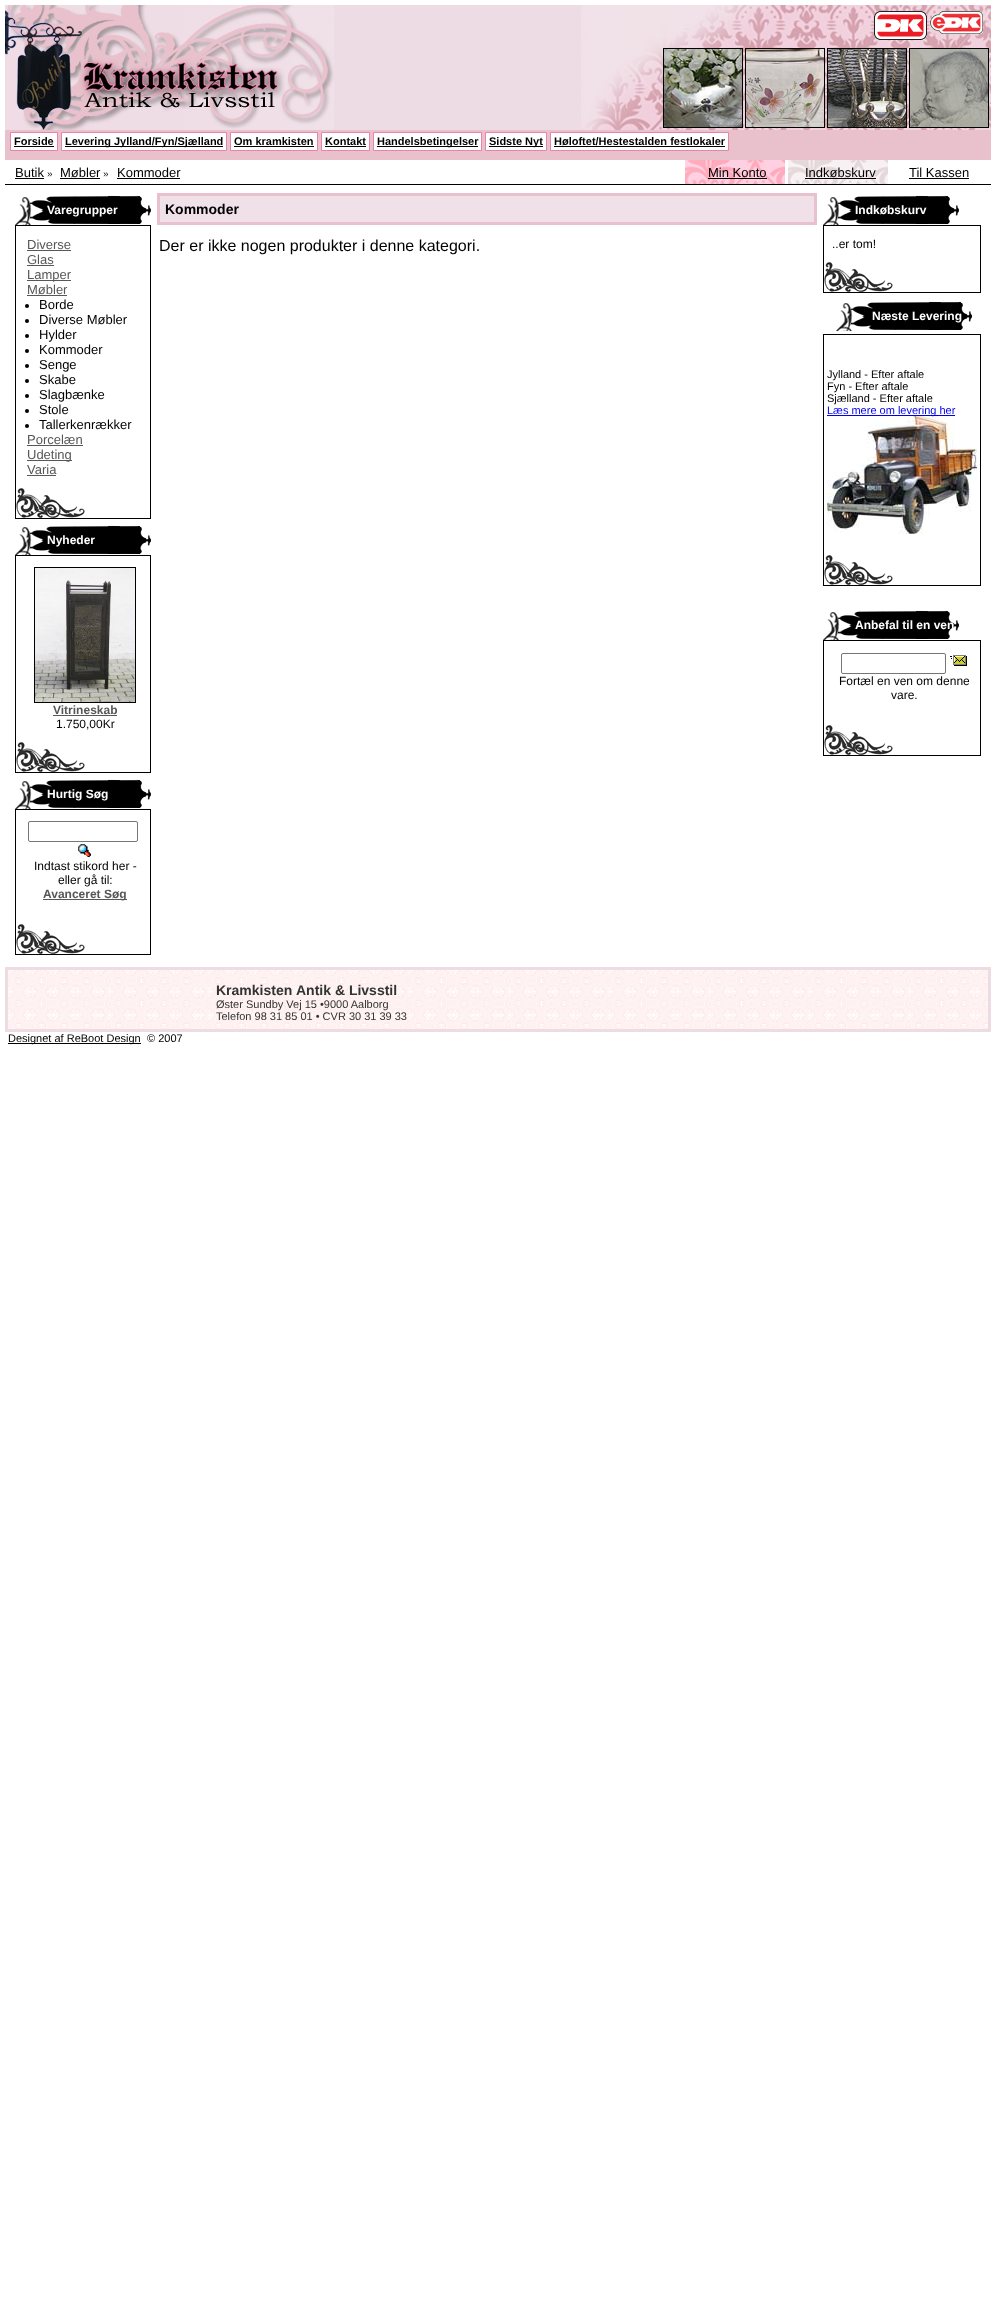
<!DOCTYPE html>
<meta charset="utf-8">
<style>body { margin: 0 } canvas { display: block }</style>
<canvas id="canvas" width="996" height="2318"></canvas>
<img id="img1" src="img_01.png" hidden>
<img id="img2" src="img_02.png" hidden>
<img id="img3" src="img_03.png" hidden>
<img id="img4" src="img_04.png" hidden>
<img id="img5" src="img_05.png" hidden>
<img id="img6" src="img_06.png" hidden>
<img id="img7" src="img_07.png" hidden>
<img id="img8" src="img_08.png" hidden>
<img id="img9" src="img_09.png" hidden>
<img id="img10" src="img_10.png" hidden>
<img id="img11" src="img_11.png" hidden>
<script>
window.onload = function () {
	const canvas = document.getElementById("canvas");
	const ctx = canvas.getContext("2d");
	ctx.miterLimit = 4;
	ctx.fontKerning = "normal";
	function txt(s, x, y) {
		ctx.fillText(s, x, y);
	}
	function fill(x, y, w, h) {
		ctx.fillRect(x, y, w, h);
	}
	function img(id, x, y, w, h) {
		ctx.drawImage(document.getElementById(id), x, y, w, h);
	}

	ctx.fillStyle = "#FFFFFF";
	fill(0, 0, 996, 2318);
	ctx.fillStyle = "#EEDCE4";
	fill(334, 5, 247, 125);
	img("img1", 5, 5, 329, 125);
	img("img2", 581, 5, 410, 125);
	ctx.fillStyle = "#E9C1CC";
	fill(5, 130, 986, 30);
	ctx.fillStyle = "#FFFFFF";
	ctx.beginPath();
	ctx.rect(10.5, 132.5, 47, 18);
	ctx.fill();
	ctx.strokeStyle = "#E884A8";
	ctx.stroke();
	ctx.fillStyle = "#000000";
	fill(14, 146, 40, 1);
	ctx.fillStyle = "#FFFFFF";
	ctx.beginPath();
	ctx.rect(61.5, 132.5, 165, 18);
	ctx.fill();
	ctx.stroke();
	ctx.fillStyle = "#000000";
	fill(65, 146, 158, 1);
	ctx.fillStyle = "#FFFFFF";
	ctx.beginPath();
	ctx.rect(230.5, 132.5, 87, 18);
	ctx.fill();
	ctx.stroke();
	ctx.fillStyle = "#000000";
	fill(234, 146, 80, 1);
	ctx.fillStyle = "#FFFFFF";
	ctx.beginPath();
	ctx.rect(321.5, 132.5, 48, 18);
	ctx.fill();
	ctx.stroke();
	ctx.fillStyle = "#000000";
	fill(325, 146, 41, 1);
	ctx.fillStyle = "#FFFFFF";
	ctx.beginPath();
	ctx.rect(373.5, 132.5, 108, 18);
	ctx.fill();
	ctx.stroke();
	ctx.fillStyle = "#000000";
	fill(377, 146, 101, 1);
	ctx.fillStyle = "#FFFFFF";
	ctx.beginPath();
	ctx.rect(485.5, 132.5, 61, 18);
	ctx.fill();
	ctx.stroke();
	ctx.fillStyle = "#000000";
	fill(489, 146, 54, 1);
	ctx.fillStyle = "#FFFFFF";
	ctx.beginPath();
	ctx.rect(550.5, 132.5, 178, 18);
	ctx.fill();
	ctx.stroke();
	ctx.fillStyle = "#000000";
	fill(554, 146, 171, 1);
	fill(5, 184, 986, 1);
	fill(15, 178, 29, 1);
	fill(60, 178, 40, 1);
	fill(117, 178, 63, 1);
	img("img3", 685, 160, 100, 24);
	fill(708, 178, 59, 1);
	img("img4", 788, 160, 100, 24);
	fill(805, 178, 71, 1);
	fill(909, 178, 60, 1);
	img("img5", 15, 195, 136, 30);
	img("img6", 16, 488, 69, 30);
	ctx.strokeStyle = "#000000";
	ctx.strokeRect(15.5, 225.5, 135, 293);
	ctx.fillStyle = "#575757";
	fill(27, 250, 44, 1);
	fill(27, 265, 27, 1);
	fill(27, 280, 44, 1);
	fill(27, 295, 40, 1);
	ctx.fillStyle = "#000000";
	ctx.beginPath();
	ctx.arc(27, 306, 2, 0, Math.PI * 2);
	ctx.fill();
	ctx.beginPath();
	ctx.arc(27, 321, 2, 0, Math.PI * 2);
	ctx.fill();
	ctx.beginPath();
	ctx.arc(27, 336, 2, 0, Math.PI * 2);
	ctx.fill();
	ctx.beginPath();
	ctx.arc(27, 351, 2, 0, Math.PI * 2);
	ctx.fill();
	ctx.beginPath();
	ctx.arc(27, 366, 2, 0, Math.PI * 2);
	ctx.fill();
	ctx.beginPath();
	ctx.arc(27, 381, 2, 0, Math.PI * 2);
	ctx.fill();
	ctx.beginPath();
	ctx.arc(27, 396, 2, 0, Math.PI * 2);
	ctx.fill();
	ctx.beginPath();
	ctx.arc(27, 411, 2, 0, Math.PI * 2);
	ctx.fill();
	ctx.beginPath();
	ctx.arc(27, 426, 2, 0, Math.PI * 2);
	ctx.fill();
	ctx.fillStyle = "#575757";
	fill(27, 445, 56, 1);
	fill(27, 460, 45, 1);
	fill(27, 475, 29, 1);
	img("img5", 15, 525, 136, 30);
	img("img6", 16, 742, 69, 30);
	ctx.strokeRect(15.5, 555.5, 135, 217);
	ctx.strokeRect(34.5, 567.5, 101, 135);
	img("img7", 35, 568, 100, 134);
	fill(53, 715, 64, 1);
	img("img5", 15, 779, 136, 30);
	img("img6", 16, 924, 69, 30);
	ctx.strokeRect(15.5, 809.5, 135, 145);
	ctx.beginPath();
	ctx.roundRect(28.5, 821.5, 109, 20, 1.5);
	ctx.strokeStyle = "#767676";
	ctx.stroke();
	img("img8", 78, 844, 13, 13);
	fill(43, 899, 84, 1);
	ctx.fillStyle = "#F0E0E7";
	ctx.beginPath();
	ctx.rect(158.5, 194.5, 657, 29);
	ctx.fill();
	ctx.strokeStyle = "#E9C1CC";
	ctx.lineWidth = 3;
	ctx.stroke();
	img("img5", 823, 195, 136, 30);
	img("img6", 824, 262, 69, 30);
	ctx.strokeStyle = "#000000";
	ctx.lineWidth = 1;
	ctx.strokeRect(823.5, 225.5, 157, 67);
	img("img6", 824, 555, 69, 30);
	ctx.strokeRect(823.5, 334.5, 157, 251);
	img("img5", 836, 301, 136, 30);
	ctx.fillStyle = "#0000EE";
	fill(827, 415, 128, 1);
	img("img9", 827, 416, 150, 118);
	img("img5", 823, 610, 136, 30);
	img("img6", 824, 725, 69, 30);
	ctx.strokeRect(823.5, 640.5, 157, 115);
	ctx.beginPath();
	ctx.roundRect(841.5, 653.5, 104, 20, 1.5);
	ctx.strokeStyle = "#767676";
	ctx.stroke();
	img("img10", 950, 655, 17, 11);
	img("img11", 8, 970, 980, 59);
	ctx.strokeStyle = "#EEDCE4";
	ctx.lineWidth = 3;
	ctx.strokeRect(6.5, 968.5, 983, 62);
	ctx.fillStyle = "#000000";
	fill(8, 1043, 133, 1);
	ctx.font = "bold 11px Liberation Sans";
	txt("Forside", 14, 145);
	txt("Levering Jylland/Fyn/Sjælland", 65, 145);
	txt("Om kramkisten", 234, 145);
	txt("Kontakt", 325, 145);
	txt("Handelsbetingelser", 377, 145);
	txt("Sidste Nyt", 489, 145);
	txt("Høloftet/Hestestalden festlokaler", 554, 145);
	ctx.font = "13px Liberation Sans";
	txt("Butik", 15, 177);
	ctx.font = "10px Liberation Sans";
	txt("»", 47, 177);
	ctx.font = "13px Liberation Sans";
	txt("Møbler", 60, 177);
	ctx.font = "10px Liberation Sans";
	txt("»", 103, 177);
	ctx.font = "13px Liberation Sans";
	txt("Kommoder", 117, 177);
	txt("Min Konto", 708, 177);
	txt("Indkøbskurv", 805, 177);
	txt("Til Kassen", 909, 177);
	ctx.font = "bold 12px Liberation Sans";
	ctx.fillStyle = "#FFFFFF";
	txt("Varegrupper", 47, 214);
	ctx.font = "13px Liberation Sans";
	ctx.fillStyle = "#575757";
	txt("Diverse", 27, 249);
	txt("Glas", 27, 264);
	txt("Lamper", 27, 279);
	txt("Møbler", 27, 294);
	ctx.fillStyle = "#000000";
	txt("Borde", 39, 309);
	txt("Diverse Møbler", 39, 324);
	txt("Hylder", 39, 339);
	txt("Kommoder", 39, 354);
	txt("Senge", 39, 369);
	txt("Skabe", 39, 384);
	txt("Slagbænke", 39, 399);
	txt("Stole", 39, 414);
	txt("Tallerkenrækker", 39, 429);
	ctx.fillStyle = "#575757";
	txt("Porcelæn", 27, 444);
	txt("Udeting", 27, 459);
	txt("Varia", 27, 474);
	ctx.font = "bold 12px Liberation Sans";
	ctx.fillStyle = "#FFFFFF";
	txt("Nyheder", 47, 544);
	ctx.fillStyle = "#575757";
	txt("Vitrineskab", 53, 714);
	ctx.font = "12px Liberation Sans";
	ctx.fillStyle = "#000000";
	txt("1.750,00Kr", 56, 728);
	ctx.font = "bold 12px Liberation Sans";
	ctx.fillStyle = "#FFFFFF";
	txt("Hurtig Søg", 47, 798);
	ctx.font = "12px Liberation Sans";
	ctx.fillStyle = "#000000";
	txt("Indtast stikord her -", 34, 870);
	txt("eller gå til:", 58, 884);
	ctx.font = "bold 12px Liberation Sans";
	ctx.fillStyle = "#575757";
	txt("Avanceret Søg", 43, 898);
	ctx.font = "bold 14px Liberation Sans";
	ctx.fillStyle = "#000000";
	txt("Kommoder", 165, 214);
	ctx.font = "16px Liberation Sans";
	txt("Der er ikke nogen produkter i denne kategori.", 159, 251);
	ctx.font = "bold 12px Liberation Sans";
	ctx.fillStyle = "#FFFFFF";
	txt("Indkøbskurv", 855, 214);
	ctx.font = "12px Liberation Sans";
	ctx.fillStyle = "#000000";
	txt("..er tom!", 832, 248);
	ctx.font = "bold 12px Liberation Sans";
	ctx.fillStyle = "#FFFFFF";
	txt("Næste Levering", 872, 320);
	ctx.font = "11px Liberation Sans";
	ctx.fillStyle = "#000000";
	txt("Jylland - Efter aftale", 827, 378);
	txt("Fyn - Efter aftale", 827, 390);
	txt("Sjælland - Efter aftale", 827, 402);
	ctx.fillStyle = "#0000EE";
	txt("Læs mere om levering her", 827, 414);
	ctx.font = "bold 12px Liberation Sans";
	ctx.fillStyle = "#FFFFFF";
	txt("Anbefal til en ven", 855, 629);
	ctx.font = "12px Liberation Sans";
	ctx.fillStyle = "#000000";
	txt("Fortæl en ven om denne", 839, 685);
	txt("vare.", 891, 699);
	ctx.font = "bold 14px Liberation Sans";
	ctx.fillStyle = "#333333";
	txt("Kramkisten", 216, 995);
	txt("Antik & Livsstil", 296, 995);
	ctx.font = "11px Liberation Sans";
	txt("Øster Sundby Vej 15 •9000 Aalborg", 216, 1008);
	txt("Telefon 98 31 85 01 • CVR 30 31 39 33", 216, 1020);
	ctx.fillStyle = "#000000";
	txt("Designet af ReBoot Design", 8, 1042);
	txt("© 2007", 147, 1042);
};
</script>
